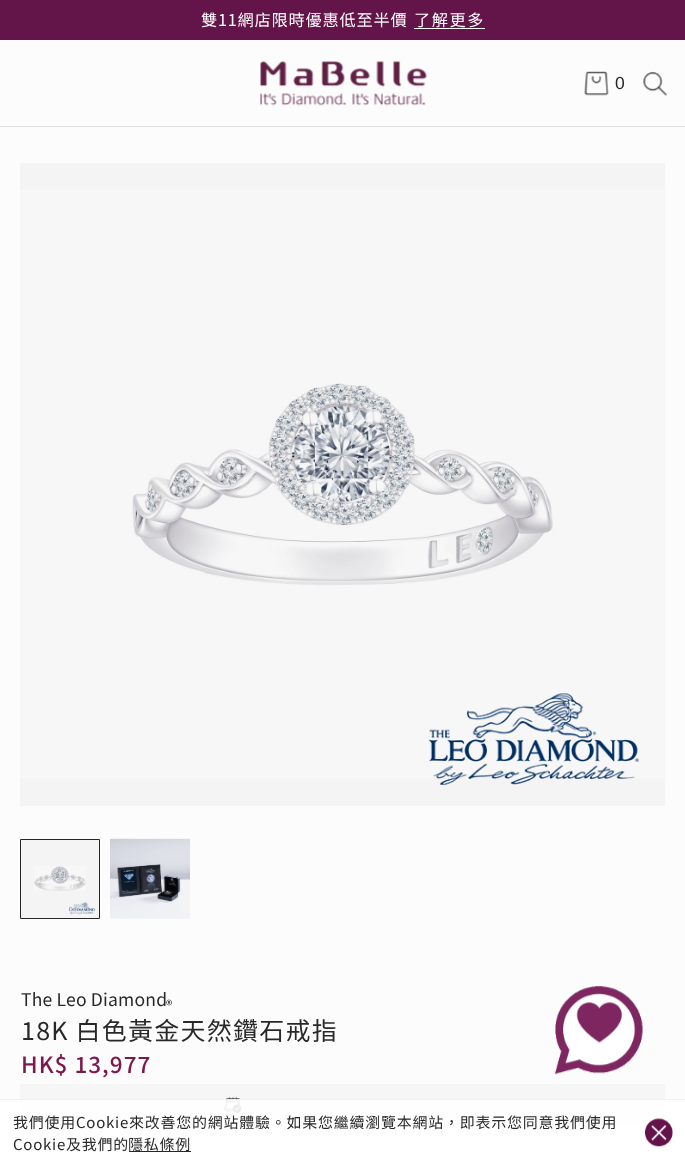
<!DOCTYPE html>
<meta charset="utf-8">
<style>body { margin: 0 } canvas { display: block }</style>
<canvas id="canvas" width="685" height="1165"></canvas>
<img id="img1" src="img_01.png" hidden>
<img id="img2" src="img_02.png" hidden>
<img id="img3" src="img_03.png" hidden>
<img id="img4" src="img_04.png" hidden>
<img id="img5" src="img_05.png" hidden>
<img id="img6" src="img_06.png" hidden>
<img id="img7" src="img_07.png" hidden>
<img id="img8" src="img_08.png" hidden>
<img id="img9" src="img_09.png" hidden>
<img id="img10" src="img_10.png" hidden>
<img id="img11" src="img_11.png" hidden>
<script>
window.onload = function () {
	const canvas = document.getElementById("canvas");
	const ctx = canvas.getContext("2d");
	ctx.miterLimit = 4;
	ctx.fontKerning = "normal";
	function txt(s, x, y) {
		ctx.fillText(s, x, y);
	}
	function fill(x, y, w, h) {
		ctx.fillRect(x, y, w, h);
	}
	function img(id, x, y, w, h) {
		ctx.drawImage(document.getElementById(id), x, y, w, h);
	}

	ctx.fillStyle = "#FCFCFC";
	fill(0, 0, 685, 1165);
	ctx.fillStyle = "#F4F4F4";
	fill(20, 163, 645, 643);
	ctx.fillStyle = "#631549";
	fill(0, 0, 685, 40);
	ctx.fillStyle = "#FFFFFF";
	fill(414, 28, 71, 1);
	ctx.fillStyle = "#E3E3E3";
	fill(0, 126, 685, 1);
	img("img1", 260, 61, 167, 45);
	img("img2", 584, 71, 25, 25);
	img("img3", 643, 71, 24, 25);
	img("img4", 20, 190, 645, 588);
	img("img5", 428, 693, 211, 92);
	ctx.fillStyle = "#F4F4F4";
	ctx.beginPath();
	ctx.rect(20.5, 839.5, 79, 79);
	ctx.fill();
	ctx.strokeStyle = "#272727";
	ctx.stroke();
	img("img6", 34, 866, 52, 25);
	img("img7", 69, 902, 26, 13);
	img("img8", 110, 838, 80, 81);
	ctx.fillStyle = "#F6F6F6";
	fill(20, 1084, 645, 42);
	img("img9", 223, 1097, 19, 16);
	img("img10", 555, 986, 88, 89);
	ctx.fillStyle = "rgba(255, 255, 255, 0.9)";
	fill(0, 1099, 685, 66);
	ctx.fillStyle = "rgba(0, 0, 0, 0.05)";
	fill(0, 1099, 685, 1);
	ctx.fillStyle = "#282828";
	fill(129, 1151, 62, 1);
	img("img11", 645, 1118, 28, 29);
	ctx.letterSpacing = "0.75px";
	ctx.font = "16.25px Noto Sans TC";
	ctx.fillStyle = "#FFFFFF";
	txt("雙11網店限時優惠低至半價", 201, 26);
	ctx.letterSpacing = "1.5px";
	txt("了解更多", 414, 26);
	ctx.letterSpacing = "0px";
	ctx.font = "17.5px Liberation Sans";
	ctx.fillStyle = "#282828";
	txt("0", 615, 89);
	ctx.letterSpacing = "0.2px";
	ctx.font = "17.5px Noto Sans TC";
	txt("The Leo Diamond", 21, 1006);
	ctx.font = "13px Noto Sans TC";
	txt("®", 166, 1010);
	ctx.letterSpacing = "1.25px";
	ctx.font = "25px Noto Sans TC";
	txt("18K 白色黃金天然鑽石戒指", 21, 1040);
	ctx.letterSpacing = "1px";
	ctx.font = "500 22.5px Noto Sans TC";
	ctx.fillStyle = "#7D184D";
	txt("HK$ 13,977", 21, 1073);
	ctx.letterSpacing = "0.75px";
	ctx.font = "15px Noto Sans TC";
	ctx.fillStyle = "#282828";
	txt("我們使用Cookie來改善您的網站體驗。如果您繼續瀏覽本網站，即表示您同意我們使用", 13, 1128);
	txt("Cookie及我們的", 13, 1150);
	txt("隱私條例", 128, 1150);
};
</script>
